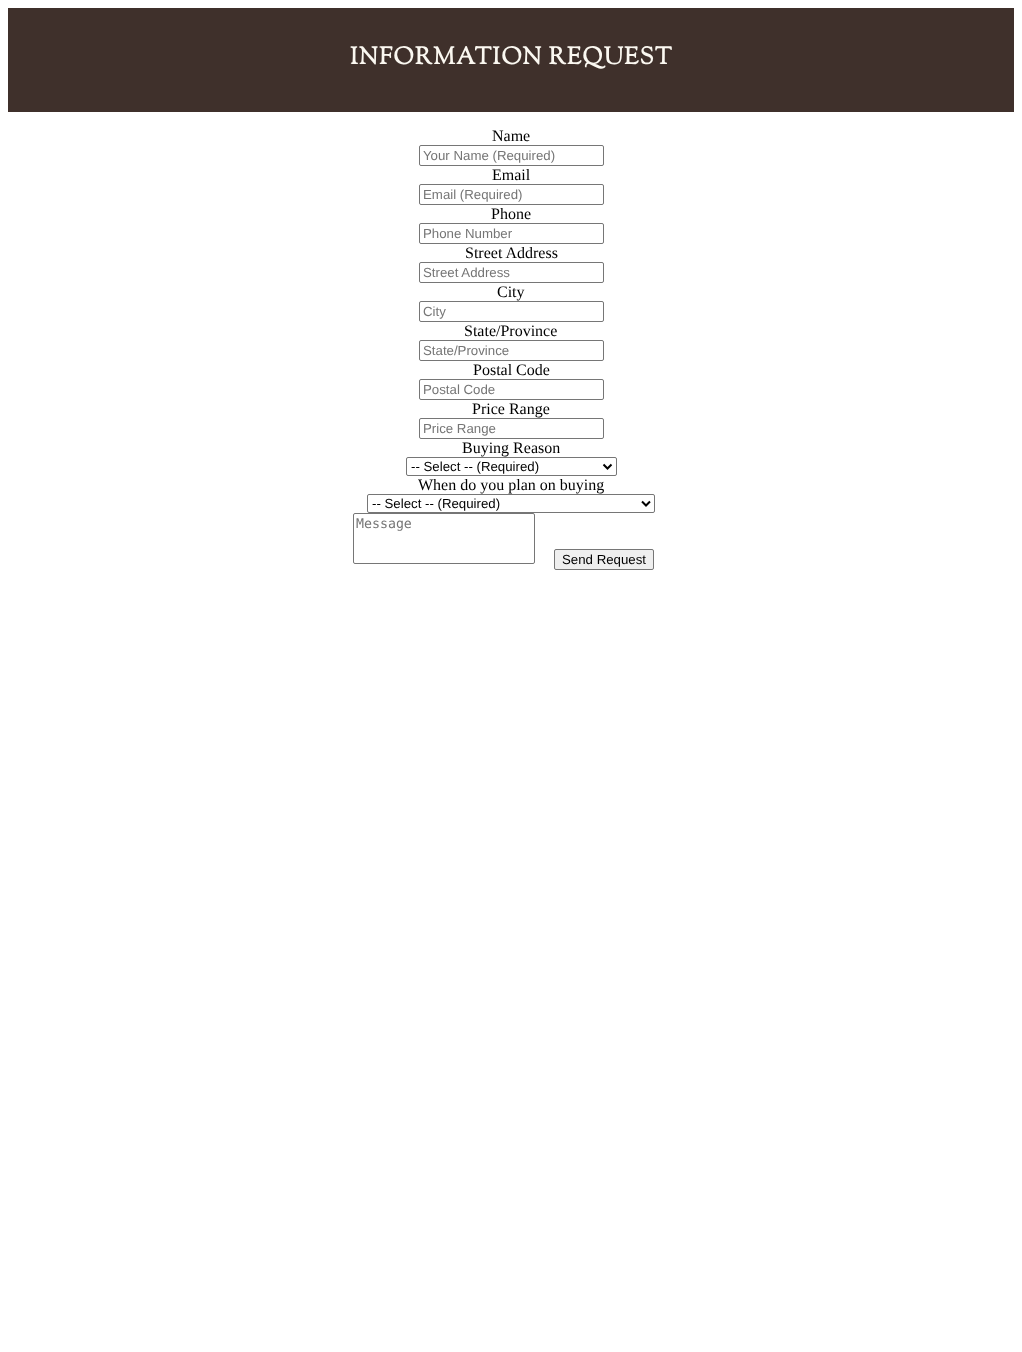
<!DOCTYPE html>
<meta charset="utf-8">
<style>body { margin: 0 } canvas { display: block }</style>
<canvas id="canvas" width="1022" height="1352"></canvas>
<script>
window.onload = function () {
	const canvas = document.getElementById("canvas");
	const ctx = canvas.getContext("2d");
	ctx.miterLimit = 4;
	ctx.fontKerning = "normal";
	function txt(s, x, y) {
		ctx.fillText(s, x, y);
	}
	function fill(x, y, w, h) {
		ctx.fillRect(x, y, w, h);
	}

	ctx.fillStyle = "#FFFFFF";
	fill(0, 0, 1022, 1352);
	ctx.fillStyle = "#3F302B";
	fill(8, 8, 1006, 104);
	ctx.beginPath();
	ctx.roundRect(419.5, 145.5, 184, 20, 1.5);
	ctx.strokeStyle = "#767676";
	ctx.stroke();
	ctx.beginPath();
	ctx.roundRect(419.5, 184.5, 184, 20, 1.5);
	ctx.stroke();
	ctx.beginPath();
	ctx.roundRect(419.5, 223.5, 184, 20, 1.5);
	ctx.stroke();
	ctx.beginPath();
	ctx.roundRect(419.5, 262.5, 184, 20, 1.5);
	ctx.stroke();
	ctx.beginPath();
	ctx.roundRect(419.5, 301.5, 184, 20, 1.5);
	ctx.stroke();
	ctx.beginPath();
	ctx.roundRect(419.5, 340.5, 184, 20, 1.5);
	ctx.stroke();
	ctx.beginPath();
	ctx.roundRect(419.5, 379.5, 184, 20, 1.5);
	ctx.stroke();
	ctx.beginPath();
	ctx.roundRect(419.5, 418.5, 184, 20, 1.5);
	ctx.stroke();
	ctx.beginPath();
	ctx.roundRect(406.5, 457.5, 210, 18, 1.5);
	ctx.stroke();
	ctx.beginPath();
	ctx.moveTo(603.5, 464.5);
	ctx.lineTo(607.5, 468.5);
	ctx.lineTo(611.5, 464.5);
	ctx.strokeStyle = "#000000";
	ctx.lineWidth = 2;
	ctx.stroke();
	ctx.beginPath();
	ctx.roundRect(367.5, 494.5, 287, 18, 1.5);
	ctx.strokeStyle = "#767676";
	ctx.lineWidth = 1;
	ctx.stroke();
	ctx.beginPath();
	ctx.moveTo(642, 501.5);
	ctx.lineTo(646, 505.5);
	ctx.lineTo(650, 501.5);
	ctx.strokeStyle = "#000000";
	ctx.lineWidth = 2;
	ctx.stroke();
	ctx.beginPath();
	ctx.roundRect(353.5, 513.5, 181, 50, 1.5);
	ctx.strokeStyle = "#767676";
	ctx.lineWidth = 1;
	ctx.stroke();
	ctx.fillStyle = "#EFEFEF";
	ctx.beginPath();
	ctx.roundRect(554.5, 549.5, 99, 20, 1.5);
	ctx.fill();
	ctx.stroke();
	ctx.letterSpacing = "1px";
	ctx.font = "bold 24px Sorts Mill Goudy";
	ctx.fillStyle = "#FBF8F1";
	txt("INFORMATION REQUEST", 350, 64);
	ctx.letterSpacing = "0px";
	ctx.font = "16px Liberation Serif";
	ctx.fillStyle = "#000000";
	txt("Name", 492, 141);
	ctx.font = "13.25px Liberation Sans";
	ctx.fillStyle = "#757575";
	txt("Your Name (Required)", 423, 160);
	ctx.font = "16px Liberation Serif";
	ctx.fillStyle = "#000000";
	txt("Email", 492, 180);
	ctx.font = "13.25px Liberation Sans";
	ctx.fillStyle = "#757575";
	txt("Email (Required)", 423, 199);
	ctx.font = "16px Liberation Serif";
	ctx.fillStyle = "#000000";
	txt("Phone", 491, 219);
	ctx.font = "13.25px Liberation Sans";
	ctx.fillStyle = "#757575";
	txt("Phone Number", 423, 238);
	ctx.font = "16px Liberation Serif";
	ctx.fillStyle = "#000000";
	txt("Street Address", 465, 258);
	ctx.font = "13.25px Liberation Sans";
	ctx.fillStyle = "#757575";
	txt("Street Address", 423, 277);
	ctx.font = "16px Liberation Serif";
	ctx.fillStyle = "#000000";
	txt("City", 497, 297);
	ctx.font = "13.25px Liberation Sans";
	ctx.fillStyle = "#757575";
	txt("City", 423, 316);
	ctx.font = "16px Liberation Serif";
	ctx.fillStyle = "#000000";
	txt("State/Province", 464, 336);
	ctx.font = "13.25px Liberation Sans";
	ctx.fillStyle = "#757575";
	txt("State/Province", 423, 355);
	ctx.font = "16px Liberation Serif";
	ctx.fillStyle = "#000000";
	txt("Postal Code", 473, 375);
	ctx.font = "13.25px Liberation Sans";
	ctx.fillStyle = "#757575";
	txt("Postal Code", 423, 394);
	ctx.font = "16px Liberation Serif";
	ctx.fillStyle = "#000000";
	txt("Price Range", 472, 414);
	ctx.font = "13.25px Liberation Sans";
	ctx.fillStyle = "#757575";
	txt("Price Range", 423, 433);
	ctx.font = "16px Liberation Serif";
	ctx.fillStyle = "#000000";
	txt("Buying Reason", 462, 453);
	ctx.font = "13.25px Liberation Sans";
	txt("-- Select -- (Required)", 411, 471);
	ctx.font = "16px Liberation Serif";
	txt("When do you plan on buying", 418, 490);
	ctx.font = "13.25px Liberation Sans";
	txt("-- Select -- (Required)", 372, 508);
	ctx.font = "13.25px DejaVu Sans Mono";
	ctx.fillStyle = "#757575";
	txt("Message", 356, 528);
	ctx.font = "13.25px Liberation Sans";
	ctx.fillStyle = "#000000";
	txt("Send Request", 562, 564);
};
</script>
